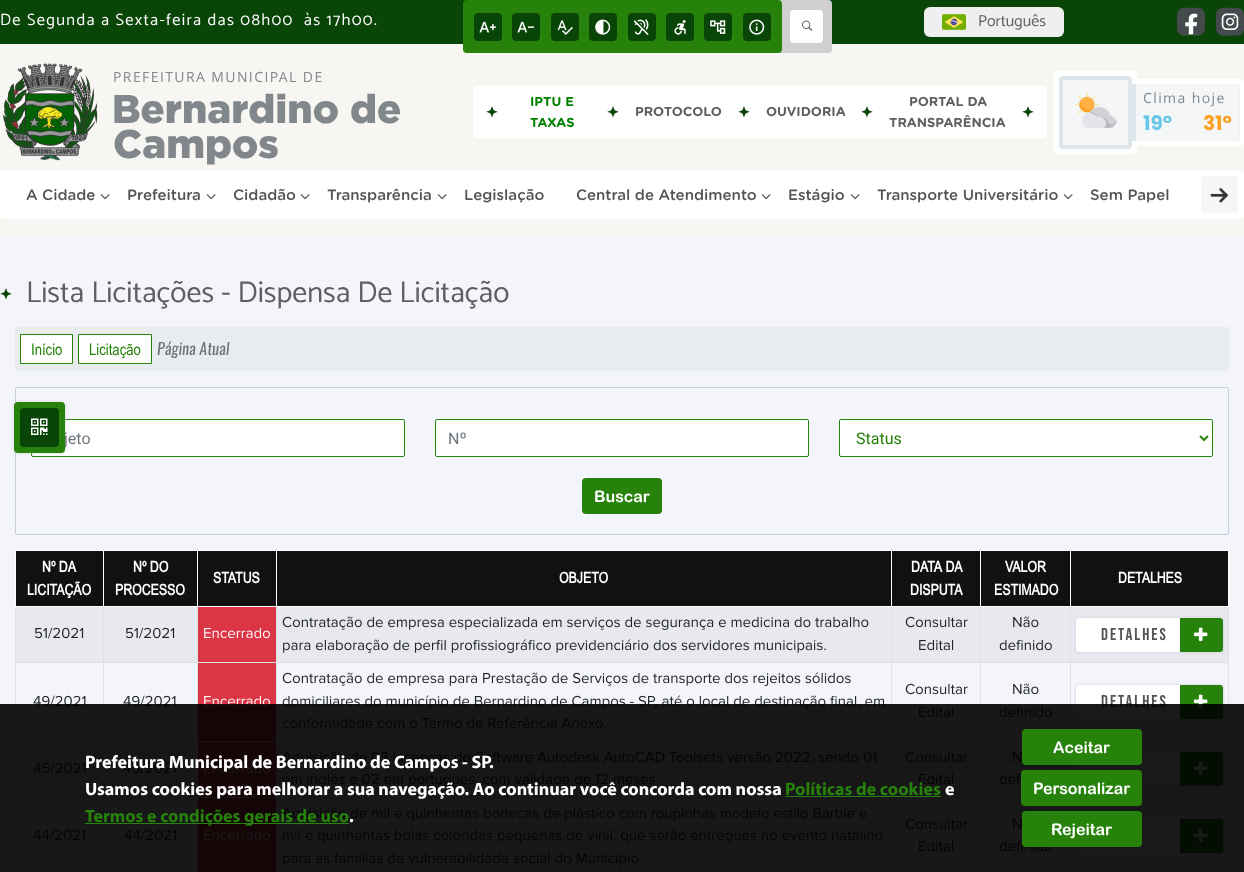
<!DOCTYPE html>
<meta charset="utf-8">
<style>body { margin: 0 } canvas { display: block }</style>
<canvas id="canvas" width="1244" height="872"></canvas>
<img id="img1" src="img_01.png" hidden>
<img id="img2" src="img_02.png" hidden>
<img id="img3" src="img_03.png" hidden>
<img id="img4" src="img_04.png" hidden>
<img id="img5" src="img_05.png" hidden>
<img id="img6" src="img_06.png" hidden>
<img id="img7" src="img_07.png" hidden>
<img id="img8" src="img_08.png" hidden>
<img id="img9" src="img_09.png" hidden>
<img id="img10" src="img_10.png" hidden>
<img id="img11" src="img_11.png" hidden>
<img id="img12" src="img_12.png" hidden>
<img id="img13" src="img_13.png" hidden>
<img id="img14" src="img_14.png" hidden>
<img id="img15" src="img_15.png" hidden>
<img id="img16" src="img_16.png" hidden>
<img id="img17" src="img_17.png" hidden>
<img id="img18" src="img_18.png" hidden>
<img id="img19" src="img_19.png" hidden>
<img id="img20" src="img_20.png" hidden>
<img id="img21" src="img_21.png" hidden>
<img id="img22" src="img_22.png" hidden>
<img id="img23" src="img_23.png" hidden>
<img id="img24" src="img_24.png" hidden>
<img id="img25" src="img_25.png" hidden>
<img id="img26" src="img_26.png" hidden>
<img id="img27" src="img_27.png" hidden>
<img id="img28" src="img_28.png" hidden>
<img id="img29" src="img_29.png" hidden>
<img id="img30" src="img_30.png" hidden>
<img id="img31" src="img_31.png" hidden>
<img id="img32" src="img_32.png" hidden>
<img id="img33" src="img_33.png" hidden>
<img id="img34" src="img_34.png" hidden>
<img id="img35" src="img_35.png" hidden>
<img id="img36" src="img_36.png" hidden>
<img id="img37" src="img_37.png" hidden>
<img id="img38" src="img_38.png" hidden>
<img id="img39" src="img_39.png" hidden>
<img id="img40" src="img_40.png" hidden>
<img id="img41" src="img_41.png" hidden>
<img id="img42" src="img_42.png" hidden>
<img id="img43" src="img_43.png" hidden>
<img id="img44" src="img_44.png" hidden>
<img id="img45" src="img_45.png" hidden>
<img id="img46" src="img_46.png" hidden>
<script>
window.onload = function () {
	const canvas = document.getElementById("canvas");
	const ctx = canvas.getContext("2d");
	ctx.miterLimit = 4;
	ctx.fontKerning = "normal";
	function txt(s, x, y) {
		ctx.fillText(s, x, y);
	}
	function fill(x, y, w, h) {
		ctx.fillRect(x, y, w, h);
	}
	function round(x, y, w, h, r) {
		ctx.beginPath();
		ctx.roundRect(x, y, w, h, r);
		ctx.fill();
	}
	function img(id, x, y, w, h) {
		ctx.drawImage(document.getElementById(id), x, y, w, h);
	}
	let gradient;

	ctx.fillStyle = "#F7F6F2";
	fill(0, 0, 1244, 872);
	ctx.fillStyle = "#0A4508";
	fill(0, 0, 1244, 44);
	ctx.fillStyle = "#D0D0D0";
	round(514, 0, 318, 53, 4);
	ctx.fillStyle = "#26820A";
	round(463, 0, 319, 53, 4);
	ctx.save();
	ctx.beginPath();
	ctx.roundRect(474, 13, 28, 28, 3);
	ctx.clip();
	ctx.fillStyle = "#0A4508";
	round(474, 13, 28, 28, 4);
	ctx.restore();
	img("img1", 479, 21, 17, 12);
	ctx.save();
	ctx.beginPath();
	ctx.roundRect(512, 13, 28, 28, 3);
	ctx.clip();
	ctx.fillStyle = "#0A4508";
	round(512, 13, 28, 28, 4);
	ctx.restore();
	img("img2", 517, 21, 17, 12);
	ctx.save();
	ctx.beginPath();
	ctx.roundRect(551, 13, 28, 28, 3);
	ctx.clip();
	ctx.fillStyle = "#0A4508";
	round(551, 13, 28, 28, 4);
	ctx.restore();
	img("img3", 557, 20, 16, 15);
	ctx.save();
	ctx.beginPath();
	ctx.roundRect(589, 13, 28, 28, 3);
	ctx.clip();
	ctx.fillStyle = "#0A4508";
	round(589, 13, 28, 28, 4);
	ctx.restore();
	img("img4", 595, 19, 16, 16);
	ctx.save();
	ctx.beginPath();
	ctx.roundRect(628, 13, 28, 28, 3);
	ctx.clip();
	ctx.fillStyle = "#0A4508";
	round(628, 13, 28, 28, 4);
	ctx.restore();
	img("img5", 633, 19, 16, 16);
	ctx.save();
	ctx.beginPath();
	ctx.roundRect(666, 13, 28, 28, 3);
	ctx.clip();
	ctx.fillStyle = "#0A4508";
	round(666, 13, 28, 28, 4);
	ctx.restore();
	img("img6", 674, 20, 12, 15);
	ctx.save();
	ctx.beginPath();
	ctx.roundRect(704, 13, 28, 28, 3);
	ctx.clip();
	ctx.fillStyle = "#0A4508";
	round(704, 13, 28, 28, 4);
	ctx.restore();
	img("img7", 710, 20, 16, 14);
	ctx.save();
	ctx.beginPath();
	ctx.roundRect(743, 13, 28, 28, 3);
	ctx.clip();
	ctx.fillStyle = "#0A4508";
	round(743, 13, 28, 28, 4);
	ctx.restore();
	img("img8", 749, 19, 16, 16);
	ctx.fillStyle = "#FFFFFF";
	round(790, 10, 33, 33, 4);
	img("img9", 802, 20, 11, 11);
	ctx.fillStyle = "#EFEFEF";
	round(924, 7, 140, 30, 6);
	img("img10", 942, 14, 24, 16);
	gradient = ctx.createRadialGradient(1191, 22, 0, 1191, 22, 20);
	gradient.addColorStop(0.6, "#FFFFFF");
	gradient.addColorStop(0.65, "#0A4508");
	ctx.fillStyle = gradient;
	round(1177, 8, 28, 28, 4);
	img("img11", 1177, 7, 28, 29);
	gradient = ctx.createRadialGradient(1230, 22, 0, 1230, 22, 20);
	gradient.addColorStop(0.6, "#FFFFFF");
	gradient.addColorStop(0.65, "#0A4508");
	ctx.fillStyle = gradient;
	round(1216, 8, 28, 28, 4);
	img("img12", 1216, 7, 28, 29);
	img("img13", 2, 63, 96, 98);
	ctx.fillStyle = "#FFFFFF";
	round(473, 86, 574, 52, 4);
	img("img14", 486, 106, 12, 12);
	img("img14", 607, 106, 12, 12);
	img("img14", 738, 106, 12, 12);
	img("img14", 861, 106, 12, 12);
	img("img14", 1022, 106, 12, 12);
	ctx.beginPath();
	ctx.roundRect(1056.5, 73.5, 78, 78, 1.5);
	ctx.fill();
	ctx.strokeStyle = "#FFFFFF";
	ctx.lineWidth = 5;
	ctx.stroke();
	ctx.fillStyle = "#F4F6F8";
	ctx.beginPath();
	ctx.roundRect(1061, 78, 69, 69, 2);
	ctx.fill();
	ctx.strokeStyle = "#DDE6EB";
	ctx.lineWidth = 4;
	ctx.stroke();
	img("img15", 1074, 92, 43, 36);
	ctx.fillStyle = "#FFFFFF";
	ctx.beginPath();
	ctx.roundRect(1139.5, 81.5, 102, 62, [0, 1.5, 1.5, 0]);
	ctx.fill();
	ctx.strokeStyle = "#FFFFFF";
	ctx.lineWidth = 5;
	ctx.stroke();
	ctx.fillStyle = "#ECEEF0";
	ctx.filter = "blur(0.5px)";
	ctx.beginPath();
	ctx.roundRect(1133, 84, 107, 57, 4);
	ctx.fill();
	ctx.filter = "none";
	ctx.fillStyle = "#F4F6F8";
	ctx.beginPath();
	ctx.roundRect(1132, 84, 107, 57, [0, 4, 4, 0]);
	ctx.fill();
	ctx.fillStyle = "#DDE6EB";
	fill(1132, 84, 4, 57);
	ctx.fillStyle = "#FFFFFF";
	round(0, 170, 1244, 49, 4);
	img("img16", 100, 194, 10, 6);
	img("img16", 206, 194, 10, 6);
	img("img16", 300, 194, 10, 6);
	img("img16", 437, 194, 10, 6);
	img("img16", 761, 194, 10, 6);
	img("img16", 850, 194, 10, 6);
	img("img16", 1063, 194, 10, 6);
	ctx.fillStyle = "#F4F6F8";
	ctx.beginPath();
	ctx.moveTo(1234, 213);
	ctx.lineTo(1205, 213);
	ctx.bezierCurveTo(1203, 213, 1201, 211, 1201, 209);
	ctx.lineTo(1201, 180);
	ctx.bezierCurveTo(1201, 178, 1203, 176, 1205, 176);
	ctx.lineTo(1234, 176);
	ctx.bezierCurveTo(1236, 176, 1238, 178, 1238, 180);
	ctx.lineTo(1238, 209);
	ctx.bezierCurveTo(1238, 211, 1236, 213, 1234, 213);
	ctx.closePath();
	ctx.fill();
	img("img17", 1210, 188, 18, 15);
	ctx.fillStyle = "#F4F5FA";
	fill(0, 237, 1244, 635);
	img("img18", 0, 288, 12, 12);
	ctx.fillStyle = "#E9ECEF";
	fill(15, 327, 1214, 44);
	ctx.fillStyle = "#FFFFFF";
	ctx.beginPath();
	ctx.rect(20.5, 334.5, 52, 29);
	ctx.fill();
	ctx.strokeStyle = "#26820A";
	ctx.lineWidth = 1;
	ctx.stroke();
	ctx.beginPath();
	ctx.rect(78.5, 334.5, 73, 29);
	ctx.fill();
	ctx.stroke();
	ctx.beginPath();
	ctx.roundRect(15.5, 387.5, 1213, 147, 1.5);
	ctx.strokeStyle = "#C9CEE1";
	ctx.stroke();
	ctx.beginPath();
	ctx.roundRect(31.5, 419.5, 373, 37, 1.5);
	ctx.fill();
	ctx.strokeStyle = "#26820A";
	ctx.stroke();
	ctx.beginPath();
	ctx.roundRect(435.5, 419.5, 373, 37, 1.5);
	ctx.fill();
	ctx.stroke();
	ctx.beginPath();
	ctx.roundRect(839.5, 419.5, 373, 37, 1.5);
	ctx.fill();
	ctx.stroke();
	ctx.beginPath();
	ctx.moveTo(1200, 436);
	ctx.lineTo(1204, 440);
	ctx.lineTo(1208, 436);
	ctx.lineWidth = 2;
	ctx.stroke();
	ctx.fillStyle = "#26820A";
	round(582, 478, 80, 36, 4);
	ctx.fillStyle = "#DEE2E6";
	fill(1228, 607, 1, 265);
	fill(15, 607, 1, 265);
	ctx.fillStyle = "#111111";
	fill(16, 551, 87, 55);
	ctx.fillStyle = "#FFFFFF";
	fill(1070, 550, 159, 1);
	fill(1228, 550, 1, 57);
	ctx.fillStyle = "#E8E9EE";
	fill(16, 607, 1212, 55);
	ctx.fillStyle = "#DEE2E6";
	fill(1070, 662, 159, 1);
	fill(1070, 662, 1, 67);
	fill(980, 662, 91, 1);
	fill(1070, 606, 1, 57);
	ctx.fillStyle = "#FFFFFF";
	fill(1070, 606, 159, 1);
	fill(1070, 550, 1, 57);
	fill(980, 550, 91, 1);
	ctx.fillStyle = "#DEE2E6";
	fill(980, 741, 42, 1);
	ctx.fillStyle = "#E8E9EE";
	fill(16, 742, 1212, 55);
	ctx.fillStyle = "#DEE2E6";
	fill(980, 797, 41, 1);
	fill(980, 797, 1, 75);
	fill(891, 797, 90, 1);
	fill(980, 741, 1, 57);
	fill(891, 741, 90, 1);
	fill(980, 662, 1, 80);
	fill(891, 662, 90, 1);
	fill(980, 606, 1, 57);
	ctx.fillStyle = "#FFFFFF";
	fill(980, 606, 91, 1);
	fill(980, 550, 1, 57);
	fill(891, 550, 90, 1);
	ctx.fillStyle = "#DEE2E6";
	fill(891, 797, 1, 75);
	fill(276, 797, 616, 1);
	fill(891, 741, 1, 57);
	fill(276, 741, 616, 1);
	fill(891, 662, 1, 80);
	fill(276, 662, 616, 1);
	fill(891, 606, 1, 57);
	ctx.fillStyle = "#FFFFFF";
	fill(891, 606, 90, 1);
	fill(891, 550, 1, 57);
	fill(276, 550, 616, 1);
	ctx.fillStyle = "#DEE2E6";
	fill(276, 797, 1, 75);
	fill(197, 797, 80, 1);
	fill(276, 741, 1, 57);
	fill(197, 741, 80, 1);
	fill(276, 662, 1, 80);
	fill(197, 662, 80, 1);
	fill(276, 606, 1, 57);
	ctx.fillStyle = "#FFFFFF";
	fill(276, 606, 616, 1);
	fill(276, 550, 1, 57);
	fill(197, 550, 80, 1);
	ctx.fillStyle = "#DEE2E6";
	fill(197, 797, 1, 75);
	fill(103, 797, 95, 1);
	fill(197, 741, 1, 57);
	fill(103, 741, 95, 1);
	fill(197, 662, 1, 80);
	fill(103, 662, 95, 1);
	fill(197, 606, 1, 57);
	ctx.fillStyle = "#FFFFFF";
	fill(197, 606, 80, 1);
	fill(197, 550, 1, 57);
	fill(103, 550, 95, 1);
	ctx.fillStyle = "#DEE2E6";
	fill(103, 797, 1, 75);
	fill(15, 797, 89, 1);
	fill(103, 741, 1, 57);
	fill(15, 741, 89, 1);
	fill(103, 662, 1, 80);
	fill(15, 662, 89, 1);
	fill(103, 606, 1, 57);
	ctx.fillStyle = "#FFFFFF";
	fill(103, 606, 95, 1);
	fill(103, 550, 1, 57);
	fill(15, 550, 89, 1);
	fill(15, 606, 89, 1);
	fill(15, 550, 1, 57);
	ctx.fillStyle = "#111111";
	fill(104, 551, 93, 55);
	fill(198, 551, 78, 55);
	fill(277, 551, 614, 55);
	fill(892, 551, 88, 55);
	fill(981, 551, 89, 55);
	fill(1071, 551, 157, 55);
	img("img19", 35, 627, 49, 12);
	img("img19", 126, 627, 49, 12);
	ctx.fillStyle = "#DC3545";
	fill(198, 607, 78, 55);
	img("img20", 204, 628, 66, 11);
	img("img21", 282, 616, 587, 14);
	img("img22", 283, 639, 543, 14);
	img("img23", 905, 616, 63, 12);
	img("img24", 919, 640, 35, 11);
	img("img25", 1013, 616, 26, 12);
	img("img26", 999, 639, 53, 12);
	ctx.fillStyle = "#C9CEE1";
	ctx.filter = "blur(1.5px)";
	ctx.beginPath();
	ctx.roundRect(1076, 618, 147, 34, 3);
	ctx.fill();
	ctx.filter = "none";
	ctx.fillStyle = "#FFFFFF";
	round(1076, 618, 147, 34, 3);
	ctx.fillStyle = "#26820A";
	ctx.beginPath();
	ctx.roundRect(1179, 618, 44, 34, [0, 3, 3, 0]);
	ctx.fill();
	ctx.fillStyle = "#FFFFFF";
	fill(1179, 618, 1, 34);
	img("img27", 1194, 627, 14, 14);
	img("img28", 33, 695, 53, 12);
	img("img28", 123, 695, 53, 12);
	ctx.fillStyle = "#DC3545";
	fill(198, 663, 78, 78);
	img("img20", 204, 696, 66, 11);
	img("img29", 282, 672, 569, 14);
	img("img30", 282, 695, 603, 14);
	img("img31", 282, 717, 324, 12);
	img("img32", 905, 683, 63, 12);
	img("img33", 919, 707, 35, 11);
	img("img34", 1013, 683, 26, 12);
	img("img35", 999, 706, 53, 12);
	ctx.fillStyle = "#C9CEE1";
	ctx.filter = "blur(1.5px)";
	ctx.beginPath();
	ctx.roundRect(1076, 685, 147, 34, 3);
	ctx.fill();
	ctx.filter = "none";
	ctx.fillStyle = "#FFFFFF";
	round(1076, 685, 147, 34, 3);
	ctx.fillStyle = "#26820A";
	ctx.beginPath();
	ctx.roundRect(1179, 685, 44, 34, [0, 3, 3, 0]);
	ctx.fill();
	ctx.fillStyle = "#FFFFFF";
	fill(1179, 685, 1, 34);
	img("img27", 1194, 694, 14, 14);
	img("img36", 33, 762, 53, 12);
	img("img36", 123, 762, 53, 12);
	ctx.fillStyle = "#DC3545";
	fill(198, 742, 78, 55);
	img("img20", 204, 763, 66, 11);
	img("img37", 282, 751, 595, 14);
	img("img38", 282, 773, 377, 14);
	img("img23", 905, 751, 63, 12);
	img("img24", 919, 774, 35, 11);
	img("img39", 1013, 752, 9, 10);
	img("img40", 999, 773, 22, 12);
	ctx.fillStyle = "#DEE2E6";
	fill(1142, 741, 87, 1);
	fill(1070, 765, 1, 5);
	ctx.fillStyle = "#C9CEE1";
	ctx.filter = "blur(1.5px)";
	ctx.beginPath();
	ctx.roundRect(1076, 752, 147, 34, 3);
	ctx.fill();
	ctx.filter = "none";
	ctx.fillStyle = "#FFFFFF";
	round(1076, 752, 147, 34, 3);
	ctx.fillStyle = "#26820A";
	ctx.beginPath();
	ctx.roundRect(1179, 752, 44, 34, [0, 3, 3, 0]);
	ctx.fill();
	ctx.fillStyle = "#FFFFFF";
	fill(1179, 752, 1, 34);
	img("img27", 1194, 761, 14, 14);
	img("img41", 33, 829, 52, 12);
	img("img41", 124, 829, 52, 12);
	ctx.fillStyle = "#DC3545";
	fill(198, 798, 78, 74);
	img("img20", 204, 830, 66, 11);
	img("img42", 282, 807, 585, 14);
	img("img43", 283, 829, 600, 14);
	img("img44", 283, 852, 359, 14);
	img("img32", 905, 818, 63, 12);
	img("img33", 919, 841, 35, 11);
	img("img45", 1013, 819, 9, 10);
	img("img35", 999, 840, 53, 12);
	ctx.fillStyle = "#DEE2E6";
	fill(1142, 797, 87, 1);
	fill(1070, 806, 1, 66);
	ctx.fillStyle = "#C9CEE1";
	ctx.filter = "blur(1.5px)";
	ctx.beginPath();
	ctx.roundRect(1076, 819, 147, 34, 3);
	ctx.fill();
	ctx.filter = "none";
	ctx.fillStyle = "#FFFFFF";
	round(1076, 819, 147, 34, 3);
	ctx.fillStyle = "#26820A";
	ctx.beginPath();
	ctx.roundRect(1179, 819, 44, 34, [0, 3, 3, 0]);
	ctx.fill();
	ctx.fillStyle = "#FFFFFF";
	fill(1179, 819, 1, 34);
	img("img27", 1194, 828, 14, 14);
	ctx.fillStyle = "#CBD0D6";
	ctx.filter = "blur(1.5px)";
	ctx.beginPath();
	ctx.roundRect(14, 402, 51, 51, 4);
	ctx.fill();
	ctx.filter = "none";
	ctx.letterSpacing = "1.3px";
	ctx.font = "16.5px Catamaran";
	ctx.fillStyle = "#FFFFFF";
	txt("De Segunda a Sexta-feira das 08h00  às 17h00.", 0, 25);
	ctx.letterSpacing = "0px";
	ctx.font = "16px Catamaran";
	ctx.fillStyle = "#5E5F61";
	txt("Português", 978, 26);
	ctx.letterSpacing = "1.4px";
	ctx.font = "14px Open Sans";
	ctx.fillStyle = "#81878B";
	txt("PREFEITURA MUNICIPAL DE", 113, 82);
	ctx.letterSpacing = "0px";
	ctx.font = "900 40px Gotham";
	txt("Bernardino de", 112, 123);
	txt("Campos", 113, 158);
	ctx.font = "bold 13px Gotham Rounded";
	ctx.fillStyle = "#008000";
	txt("IPTU E", 530, 106);
	txt("TAXAS", 530, 127);
	ctx.fillStyle = "#5E5F61";
	txt("PROTOCOLO", 635, 116);
	txt("OUVIDORIA", 766, 116);
	txt("PORTAL DA", 909, 106);
	txt("TRANSPARÊNCIA", 889, 127);
	ctx.letterSpacing = "1.4px";
	ctx.font = "14px Open Sans";
	ctx.fillStyle = "#81878B";
	txt("Clima hoje", 1143, 103);
	ctx.letterSpacing = "0px";
	ctx.font = "bold 20px Poppins";
	ctx.fillStyle = "#66C8E4";
	txt("19°", 1143, 130);
	ctx.fillStyle = "#FCA022";
	txt("31°", 1203, 130);
	ctx.font = "500 15px Gotham Rounded";
	ctx.fillStyle = "#555555";
	txt("A Cidade", 26, 200);
	txt("Prefeitura", 127, 200);
	txt("Cidadão", 233, 200);
	txt("Transparência", 327, 200);
	txt("Legislação", 464, 200);
	txt("Central de Atendimento", 576, 200);
	txt("Estágio", 788, 200);
	txt("Transporte Universitário", 877, 200);
	txt("Sem Papel", 1090, 200);
	ctx.font = "30px Catamaran";
	ctx.fillStyle = "#5E5F61";
	txt("Lista Licitações - Dispensa De Licitação", 26, 302);
	ctx.font = "16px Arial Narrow";
	ctx.fillStyle = "#26820A";
	txt("Início", 31, 355);
	txt("Licitação", 89, 355);
	ctx.font = "italic 16px Oswald";
	ctx.fillStyle = "#6C757D";
	txt("Página Atual", 157, 355);
	ctx.font = "16px Roboto";
	txt("jeto", 64, 444);
	txt("Nº", 448, 444);
	ctx.fillStyle = "#26820A";
	txt("Status", 856, 444);
	ctx.font = "bold 16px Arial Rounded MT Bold";
	ctx.fillStyle = "#FFFFFF";
	txt("Buscar", 594, 502);
	ctx.font = "bold 15px Arial Narrow";
	txt("Nº DA", 42, 572);
	txt("LICITAÇÃO", 27, 595);
	txt("Nº DO", 133, 572);
	txt("PROCESSO", 115, 595);
	txt("STATUS", 213, 583);
	txt("OBJETO", 559, 583);
	txt("DATA DA", 911, 572);
	txt("DISPUTA", 910, 595);
	txt("VALOR", 1005, 572);
	txt("ESTIMADO", 994, 595);
	txt("DETALHES", 1118, 583);
	ctx.letterSpacing = "2px";
	ctx.font = "17px Bebas Neue";
	ctx.fillStyle = "#555555";
	txt("Detalhes", 1101, 640);
	txt("Detalhes", 1101, 707);
	ctx.fillStyle = "rgba(0, 0, 0, 0.9)";
	fill(0, 704, 1244, 168);
	ctx.letterSpacing = "0px";
	ctx.font = "bold 18px Myriad";
	ctx.fillStyle = "#FFFFFF";
	txt("Prefeitura Municipal de Bernardino de Campos - SP.", 85, 768);
	txt("Usamos cookies para melhorar a sua navegação. Ao continuar você concorda com nossa", 85, 795);
	ctx.fillStyle = "#26820A";
	txt("Políticas de cookies", 785, 795);
	fill(785, 796, 156, 1);
	ctx.fillStyle = "#FFFFFF";
	txt("e", 945, 795);
	ctx.fillStyle = "#26820A";
	fill(85, 823, 264, 1);
	txt("Termos e condições gerais de uso", 85, 822);
	ctx.fillStyle = "#FFFFFF";
	txt(".", 349, 822);
	ctx.fillStyle = "#26820A";
	round(1022, 729, 120, 36, 4);
	ctx.font = "bold 16px Arial Rounded MT Bold";
	ctx.fillStyle = "#FFFFFF";
	txt("Aceitar", 1053, 753);
	ctx.fillStyle = "#26820A";
	round(1021, 770, 121, 36, 4);
	ctx.fillStyle = "#FFFFFF";
	txt("Personalizar", 1033, 794);
	ctx.fillStyle = "#26820A";
	round(1022, 811, 120, 36, 4);
	ctx.fillStyle = "#FFFFFF";
	txt("Rejeitar", 1051, 835);
	ctx.fillStyle = "#26820A";
	round(14, 402, 51, 51, 4);
	ctx.fillStyle = "#0A4508";
	round(20, 408, 39, 39, 4);
	img("img46", 31, 418, 17, 17);
};
</script>
